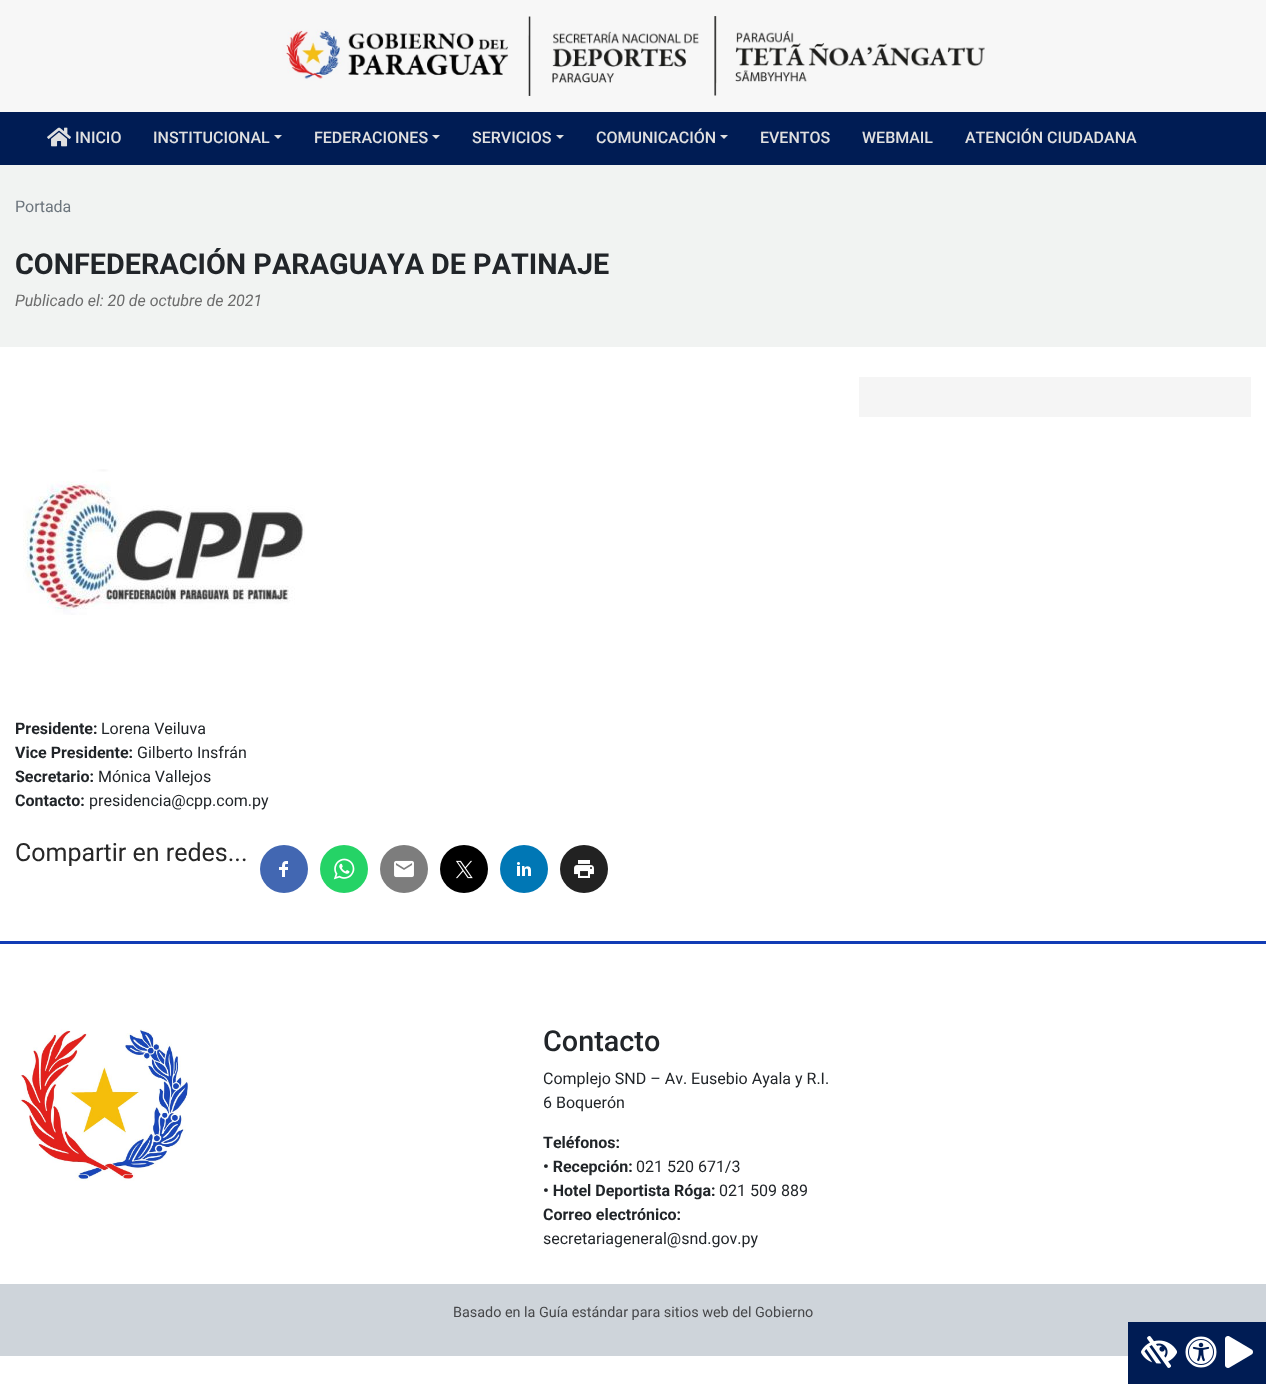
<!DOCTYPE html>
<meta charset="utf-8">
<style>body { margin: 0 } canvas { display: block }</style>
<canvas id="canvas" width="1266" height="1384"></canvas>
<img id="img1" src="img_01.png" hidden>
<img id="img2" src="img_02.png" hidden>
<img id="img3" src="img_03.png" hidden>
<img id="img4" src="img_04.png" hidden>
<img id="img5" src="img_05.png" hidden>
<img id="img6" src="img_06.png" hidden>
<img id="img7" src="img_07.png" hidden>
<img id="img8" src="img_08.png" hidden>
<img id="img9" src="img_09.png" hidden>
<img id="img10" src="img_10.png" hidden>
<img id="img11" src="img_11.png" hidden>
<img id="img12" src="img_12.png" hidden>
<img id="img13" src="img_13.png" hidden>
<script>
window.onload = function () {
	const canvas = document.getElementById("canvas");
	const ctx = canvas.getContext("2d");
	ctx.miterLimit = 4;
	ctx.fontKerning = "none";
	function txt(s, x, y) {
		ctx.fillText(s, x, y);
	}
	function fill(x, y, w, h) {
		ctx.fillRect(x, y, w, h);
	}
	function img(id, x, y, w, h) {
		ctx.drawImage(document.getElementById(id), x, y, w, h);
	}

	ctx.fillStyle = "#FFFFFF";
	fill(0, 0, 1266, 1384);
	ctx.fillStyle = "#F7F7F7";
	fill(0, 0, 1266, 112);
	img("img1", 282, 16, 703, 80);
	ctx.fillStyle = "#001C54";
	fill(0, 112, 1266, 53);
	img("img2", 47, 127, 24, 20);
	ctx.fillStyle = "#E0E0E0";
	ctx.beginPath();
	ctx.moveTo(274, 135);
	ctx.lineTo(282, 135);
	ctx.lineTo(278, 139);
	ctx.closePath();
	ctx.fill();
	ctx.beginPath();
	ctx.moveTo(432, 135);
	ctx.lineTo(440, 135);
	ctx.lineTo(436, 139);
	ctx.closePath();
	ctx.fill();
	ctx.beginPath();
	ctx.moveTo(556, 135);
	ctx.lineTo(564, 135);
	ctx.lineTo(560, 139);
	ctx.closePath();
	ctx.fill();
	ctx.beginPath();
	ctx.moveTo(720, 135);
	ctx.lineTo(728, 135);
	ctx.lineTo(724, 139);
	ctx.closePath();
	ctx.fill();
	ctx.fillStyle = "#F1F3F2";
	fill(0, 165, 1266, 182);
	ctx.fillStyle = "#F5F5F5";
	fill(859, 377, 392, 40);
	img("img3", 23, 469, 282, 146);
	ctx.fillStyle = "#4267B2";
	ctx.beginPath();
	ctx.arc(284, 869, 24, 0, Math.PI * 2);
	ctx.fill();
	img("img4", 279, 861, 9, 16);
	ctx.fillStyle = "#25D366";
	ctx.beginPath();
	ctx.arc(344, 869, 24, 0, Math.PI * 2);
	ctx.fill();
	img("img5", 333, 858, 22, 22);
	ctx.fillStyle = "#7D7D7D";
	ctx.beginPath();
	ctx.arc(404, 869, 24, 0, Math.PI * 2);
	ctx.fill();
	img("img6", 394, 860, 20, 18);
	ctx.fillStyle = "#000000";
	ctx.beginPath();
	ctx.arc(464, 869, 24, 0, Math.PI * 2);
	ctx.fill();
	img("img7", 456, 860, 17, 19);
	ctx.fillStyle = "#0077B5";
	ctx.beginPath();
	ctx.arc(524, 869, 24, 0, Math.PI * 2);
	ctx.fill();
	img("img8", 517, 862, 14, 14);
	ctx.fillStyle = "#222222";
	ctx.beginPath();
	ctx.arc(584, 869, 24, 0, Math.PI * 2);
	ctx.fill();
	img("img9", 574, 860, 20, 18);
	ctx.fillStyle = "#123CB5";
	fill(0, 941, 1266, 3);
	img("img10", 20, 1029, 170, 152);
	ctx.fillStyle = "#CED4DA";
	fill(0, 1284, 1266, 72);
	ctx.fillStyle = "#001C54";
	fill(1128, 1322, 138, 62);
	img("img11", 1141, 1336, 36, 32);
	img("img12", 1185, 1336, 32, 32);
	img("img13", 1225, 1336, 28, 32);
	ctx.font = "500 16px Roboto";
	ctx.fillStyle = "#E0E0E0";
	txt("INICIO", 75, 143);
	txt("INSTITUCIONAL", 153, 143);
	txt("FEDERACIONES", 314, 143);
	txt("SERVICIOS", 472, 143);
	txt("COMUNICACIÓN", 596, 143);
	txt("EVENTOS", 760, 143);
	txt("WEBMAIL", 862, 143);
	txt("ATENCIÓN CIUDADANA", 965, 143);
	ctx.font = "16px Roboto";
	ctx.fillStyle = "#6C757D";
	txt("Portada", 15, 212);
	ctx.font = "bold 28.8px Roboto";
	ctx.fillStyle = "#212529";
	txt("CONFEDERACIÓN PARAGUAYA", 15, 274);
	txt("DE PATINAJE", 431, 274);
	ctx.font = "italic 16px Roboto";
	ctx.fillStyle = "#6C6C6C";
	txt("Publicado el: 20 de octubre de 2021", 15, 306);
	ctx.font = "bold 16px Roboto";
	ctx.fillStyle = "#212529";
	txt("Presidente:", 15, 734);
	ctx.font = "16px Roboto";
	txt("Lorena Veiluva", 101, 734);
	ctx.font = "bold 16px Roboto";
	txt("Vice Presidente:", 15, 758);
	ctx.font = "16px Roboto";
	txt("Gilberto Insfrán", 137, 758);
	ctx.font = "bold 16px Roboto";
	txt("Secretario:", 15, 782);
	ctx.font = "16px Roboto";
	txt("Mónica Vallejos", 98, 782);
	ctx.font = "bold 16px Roboto";
	txt("Contacto:", 15, 806);
	ctx.font = "16px Roboto";
	txt("presidencia@cpp.com.py", 89, 806);
	ctx.font = "25px Roboto";
	ctx.fillStyle = "#272727";
	txt("Compartir en redes...", 15, 861);
	ctx.font = "500 28.8px Roboto";
	ctx.fillStyle = "#212529";
	txt("Contacto", 543, 1051);
	ctx.font = "16px Roboto";
	txt("Complejo SND – Av. Eusebio Ayala y R.I.", 543, 1084);
	txt("6 Boquerón", 543, 1108);
	ctx.font = "bold 16px Roboto";
	txt("Teléfonos:", 543, 1148);
	txt("• Recepción:", 543, 1172);
	ctx.font = "16px Roboto";
	txt("021 520 671/3", 636, 1172);
	ctx.font = "bold 16px Roboto";
	txt("• Hotel Deportista Róga:", 543, 1196);
	ctx.font = "16px Roboto";
	txt("021 509 889", 719, 1196);
	ctx.font = "bold 16px Roboto";
	txt("Correo electrónico:", 543, 1220);
	ctx.font = "16px Roboto";
	txt("secretariageneral@snd.gov.py", 543, 1244);
	ctx.font = "14.4px Roboto";
	ctx.fillStyle = "#464749";
	txt("Basado en la Guía estándar para sitios web del Gobierno", 453, 1317);
};
</script>
